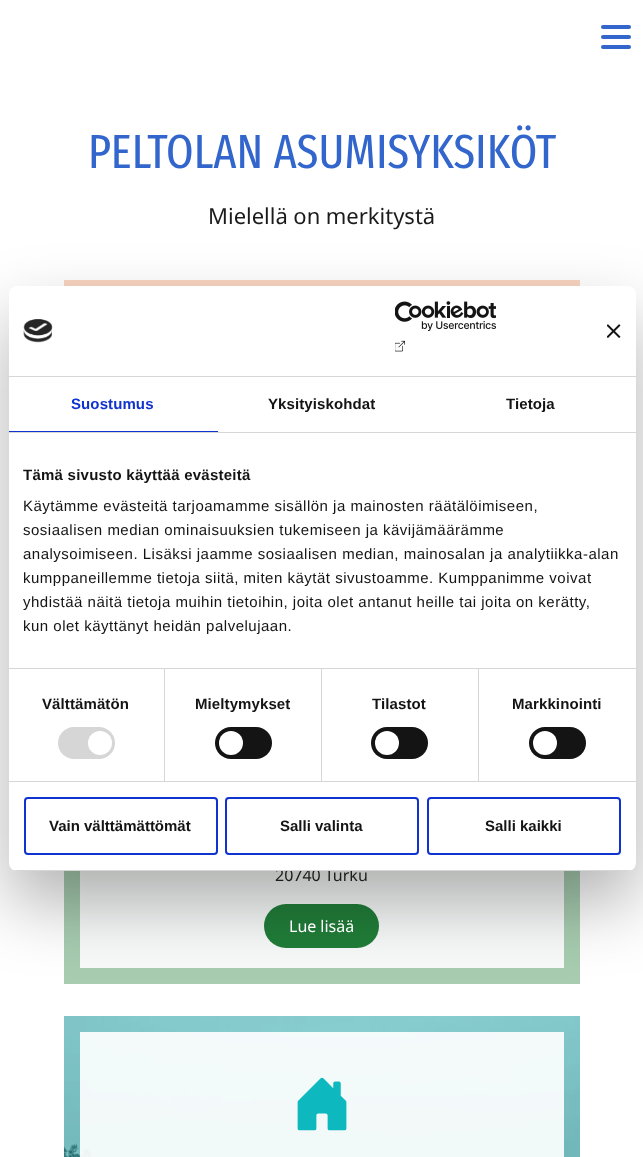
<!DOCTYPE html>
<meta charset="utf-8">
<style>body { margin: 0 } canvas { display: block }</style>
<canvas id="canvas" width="643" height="1157"></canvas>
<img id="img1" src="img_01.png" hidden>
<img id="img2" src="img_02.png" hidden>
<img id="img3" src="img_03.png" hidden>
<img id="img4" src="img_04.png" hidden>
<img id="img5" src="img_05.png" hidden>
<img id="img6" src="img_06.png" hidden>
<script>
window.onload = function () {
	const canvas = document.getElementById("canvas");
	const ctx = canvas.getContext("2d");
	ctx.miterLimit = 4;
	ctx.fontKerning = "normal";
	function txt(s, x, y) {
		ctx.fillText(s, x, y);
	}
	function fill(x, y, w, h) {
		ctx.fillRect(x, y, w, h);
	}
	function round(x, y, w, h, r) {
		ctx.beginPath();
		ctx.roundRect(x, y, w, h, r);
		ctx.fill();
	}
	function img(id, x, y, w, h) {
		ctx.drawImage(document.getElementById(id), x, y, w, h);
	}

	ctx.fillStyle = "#FFFFFF";
	fill(0, 0, 643, 1157);
	ctx.fillStyle = "#3266CC";
	round(601, 25, 30, 4, 2);
	round(601, 35, 30, 4, 2);
	round(601, 45, 30, 4, 2);
	ctx.fillStyle = "#F9D5C2";
	fill(64, 280, 516, 6);
	ctx.fillStyle = "#A7CCB0";
	fill(64, 871, 516, 113);
	ctx.fillStyle = "#F7FAF8";
	fill(80, 871, 484, 97);
	ctx.fillStyle = "#217E39";
	round(264, 904, 115, 44, 22);
	img("img1", 64, 1016, 516, 141);
	ctx.fillStyle = "rgba(255, 255, 255, 0.91)";
	fill(80, 1032, 484, 125);
	img("img2", 297, 1077, 50, 54);
	ctx.fillStyle = "rgba(0, 0, 0, 0.3)";
	ctx.filter = "blur(34px)";
	ctx.beginPath();
	ctx.roundRect(9, 318, 627, 585, 8);
	ctx.fill();
	ctx.filter = "none";
	ctx.font = "48px Fira Sans Extra Condensed";
	ctx.fillStyle = "#3266CC";
	txt("PELTOLAN ASUMISYKSIKÖT", 88, 168);
	ctx.font = "22px Noto Sans Adlam";
	ctx.fillStyle = "#1B1B1B";
	txt("Mielellä on merkitystä", 208, 224);
	ctx.font = "16px Noto Sans Adlam";
	txt("20740 Turku", 275, 881);
	ctx.fillStyle = "#FFFFFF";
	txt("Lue lisää", 289, 932);
	round(9, 286, 627, 585, 8);
	ctx.fillStyle = "#D6D6D6";
	fill(9, 376, 627, 1);
	img("img3", 23, 319, 30, 24);
	img("img4", 395, 301, 101, 30);
	img("img5", 395, 340, 10, 12);
	img("img6", 607, 324, 14, 14);
	fill(9, 432, 627, 1);
	ctx.fillStyle = "#1032CF";
	fill(9, 431, 209, 1);
	ctx.letterSpacing = "0.1px";
	ctx.font = "bold 15px Liberation Sans";
	txt("Suostumus", 71, 409);
	ctx.fillStyle = "#141414";
	txt("Yksityiskohdat", 268, 409);
	txt("Tietoja", 506, 409);
	ctx.fillStyle = "#D6D6D6";
	fill(9, 668, 627, 1);
	ctx.letterSpacing = "0.25px";
	ctx.fillStyle = "#141414";
	txt("Tämä sivusto käyttää evästeitä", 23, 480);
	ctx.letterSpacing = "0.5px";
	ctx.font = "15px Liberation Sans";
	txt("Käytämme evästeitä tarjoamamme sisällön ja mainosten räätälöimiseen,", 23, 511);
	txt("sosiaalisen median ominaisuuksien tukemiseen ja kävijämäärämme", 23, 535);
	txt("analysoimiseen. Lisäksi jaamme sosiaalisen median, mainosalan ja analytiikka-alan", 23, 559);
	txt("kumppaneillemme tietoja siitä, miten käytät sivustoamme. Kumppanimme voivat", 23, 583);
	txt("yhdistää näitä tietoja muihin tietoihin, joita olet antanut heille tai joita on kerätty,", 23, 607);
	txt("kun olet käyttänyt heidän palvelujaan.", 23, 631);
	ctx.fillStyle = "#D6D6D6";
	fill(9, 781, 627, 1);
	fill(164, 669, 1, 112);
	ctx.letterSpacing = "0.1px";
	ctx.font = "bold 15px Liberation Sans";
	ctx.fillStyle = "#141414";
	txt("Välttämätön", 42, 709);
	ctx.fillStyle = "#D6D6D6";
	round(58, 727, 57, 32, 16);
	ctx.fillStyle = "#FFFFFF";
	ctx.beginPath();
	ctx.arc(100, 743, 12, 0, Math.PI * 2);
	ctx.fill();
	ctx.fillStyle = "#D6D6D6";
	fill(321, 669, 1, 112);
	ctx.fillStyle = "#141414";
	txt("Mieltymykset", 195, 709);
	round(215, 727, 57, 32, 16);
	ctx.fillStyle = "#FFFFFF";
	ctx.beginPath();
	ctx.arc(231, 743, 12, 0, Math.PI * 2);
	ctx.fill();
	ctx.fillStyle = "#D6D6D6";
	fill(478, 669, 1, 112);
	ctx.fillStyle = "#141414";
	txt("Tilastot", 372, 709);
	round(371, 727, 57, 32, 16);
	ctx.fillStyle = "#FFFFFF";
	ctx.beginPath();
	ctx.arc(387, 743, 12, 0, Math.PI * 2);
	ctx.fill();
	ctx.fillStyle = "#141414";
	txt("Markkinointi", 512, 709);
	round(529, 727, 57, 32, 16);
	ctx.fillStyle = "#FFFFFF";
	ctx.beginPath();
	ctx.arc(545, 743, 12, 0, Math.PI * 2);
	ctx.fill();
	ctx.save();
	ctx.beginPath();
	ctx.roundRect(9, 286, 627, 585, 8);
	ctx.clip();
	ctx.fillStyle = "#D6D6D6";
	fill(9, 870, 627, 1);
	ctx.restore();
	ctx.beginPath();
	ctx.roundRect(25, 798, 192, 56, 3);
	ctx.strokeStyle = "#1032CF";
	ctx.lineWidth = 2;
	ctx.stroke();
	ctx.letterSpacing = "0px";
	ctx.fillStyle = "#141414";
	txt("Vain välttämättömät", 49, 831);
	ctx.beginPath();
	ctx.roundRect(226, 798, 192, 56, 3);
	ctx.stroke();
	txt("Salli valinta", 280, 831);
	ctx.beginPath();
	ctx.roundRect(428, 798, 192, 56, 3);
	ctx.stroke();
	txt("Salli kaikki", 485, 831);
};
</script>
